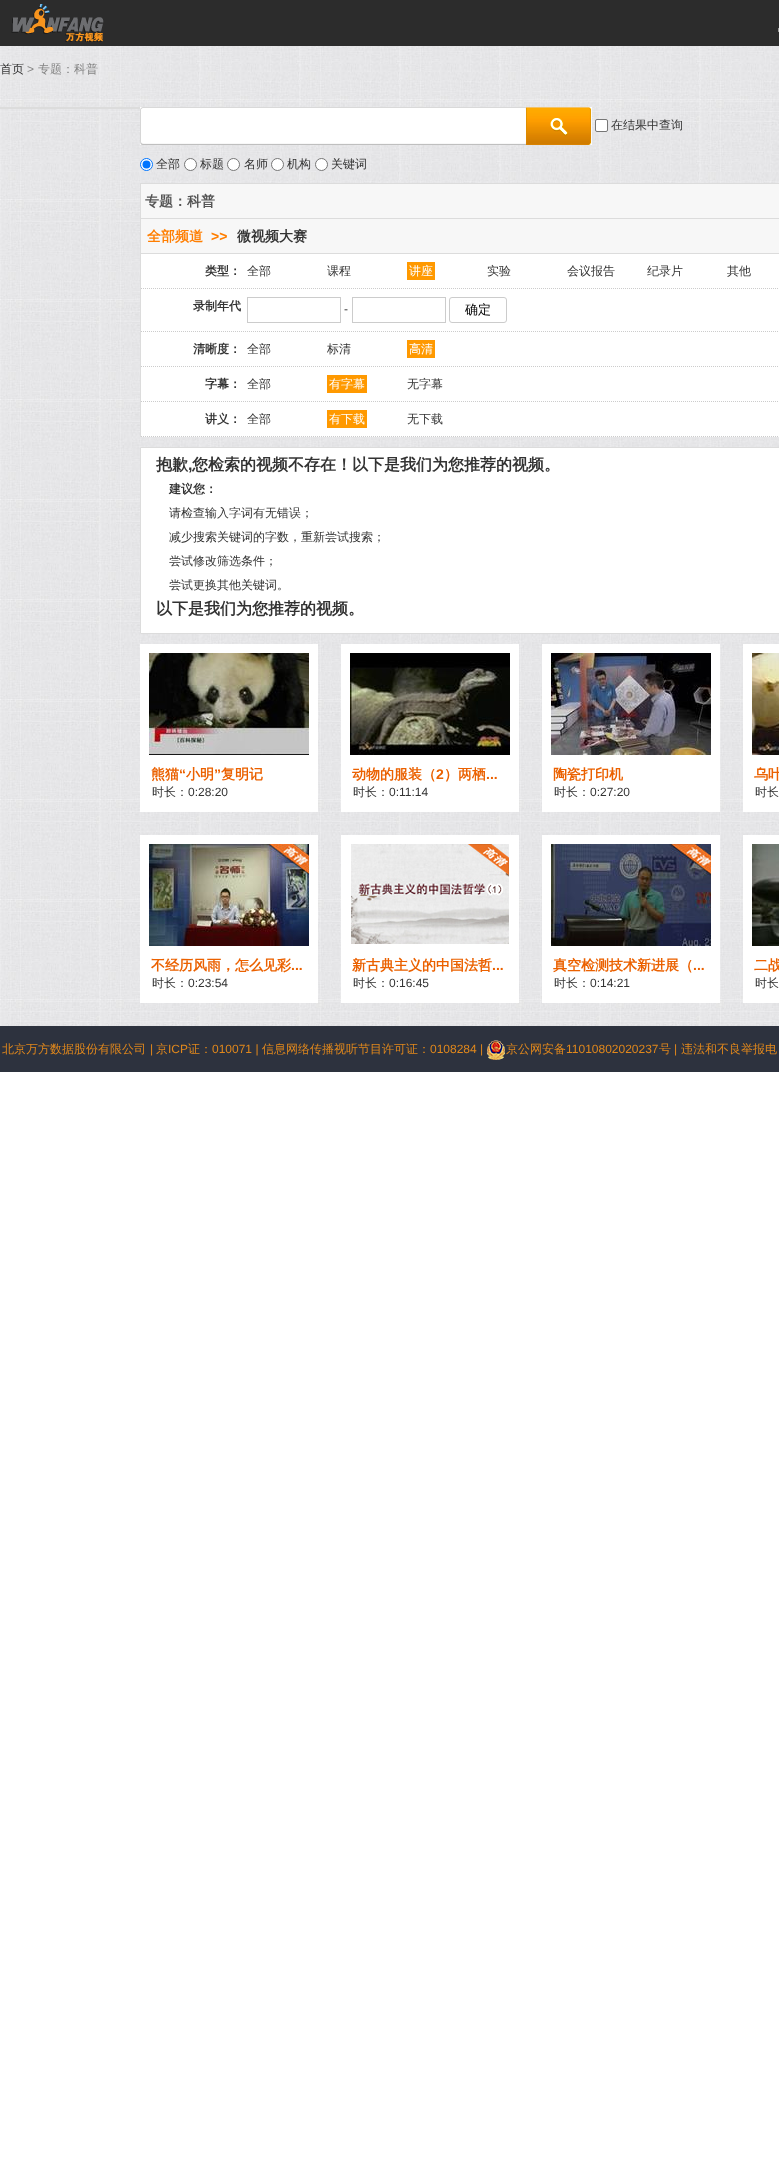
<!DOCTYPE html>
<meta charset="utf-8">
<style>body { margin: 0 } canvas { display: block }</style>
<canvas id="canvas" width="779" height="2178"></canvas>
<img id="img1" src="img_01.png" hidden>
<img id="img2" src="img_02.png" hidden>
<img id="img3" src="img_03.png" hidden>
<img id="img4" src="img_04.png" hidden>
<img id="img5" src="img_05.png" hidden>
<img id="img6" src="img_06.png" hidden>
<img id="img7" src="img_07.png" hidden>
<img id="img8" src="img_08.png" hidden>
<img id="img9" src="img_09.png" hidden>
<img id="img10" src="img_10.png" hidden>
<img id="img11" src="img_11.png" hidden>
<img id="img12" src="img_12.png" hidden>
<img id="img13" src="img_13.png" hidden>
<script>
window.onload = function () {
	const canvas = document.getElementById("canvas");
	const ctx = canvas.getContext("2d");
	ctx.miterLimit = 4;
	ctx.fontKerning = "normal";
	function txt(s, x, y) {
		ctx.fillText(s, x, y);
	}
	function fill(x, y, w, h) {
		ctx.fillRect(x, y, w, h);
	}
	function img(id, x, y, w, h) {
		ctx.drawImage(document.getElementById(id), x, y, w, h);
	}

	ctx.fillStyle = "#FFFFFF";
	fill(0, 0, 779, 2178);
	img("img1", 0, 46, 779, 980);
	ctx.fillStyle = "#2C2C2C";
	fill(0, 0, 779, 46);
	img("img2", 11, 4, 93, 38);
	img("img3", 778, 28, 1, 4);
	ctx.fillStyle = "#DCDCDC";
	fill(0, 107, 140, 2);
	img("img4", 140, 107, 452, 38);
	ctx.fillStyle = "#FFFFFF";
	ctx.beginPath();
	ctx.roundRect(595.5, 119.5, 12, 12, 1.5);
	ctx.fill();
	ctx.strokeStyle = "#767676";
	ctx.stroke();
	ctx.beginPath();
	ctx.arc(146.5, 164.5, 6, 0, Math.PI * 2);
	ctx.fill();
	ctx.strokeStyle = "#0075FF";
	ctx.stroke();
	ctx.fillStyle = "#0075FF";
	ctx.beginPath();
	ctx.arc(146.5, 164.5, 4, 0, Math.PI * 2);
	ctx.fill();
	ctx.fillStyle = "#FFFFFF";
	ctx.beginPath();
	ctx.arc(190.5, 164.5, 6, 0, Math.PI * 2);
	ctx.fill();
	ctx.strokeStyle = "#767676";
	ctx.stroke();
	ctx.beginPath();
	ctx.arc(233.5, 164.5, 6, 0, Math.PI * 2);
	ctx.fill();
	ctx.stroke();
	ctx.beginPath();
	ctx.arc(277.5, 164.5, 6, 0, Math.PI * 2);
	ctx.fill();
	ctx.stroke();
	ctx.beginPath();
	ctx.arc(321.5, 164.5, 6, 0, Math.PI * 2);
	ctx.fill();
	ctx.stroke();
	fill(141, 254, 638, 183);
	ctx.fillStyle = "#DCDCDC";
	fill(140, 183, 639, 1);
	fill(140, 183, 1, 254);
	ctx.fillStyle = "#F7F7F7";
	fill(141, 184, 638, 69);
	ctx.fillStyle = "#DCDCDC";
	fill(141, 218, 638, 1);
	fill(141, 253, 638, 1);
	ctx.fillStyle = "#FF9900";
	fill(407, 262, 28, 18);
	ctx.beginPath();
	ctx.moveTo(141, 288.5);
	ctx.lineTo(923, 288.5);
	ctx.strokeStyle = "#CCCCCC";
	ctx.setLineDash([1, 1]);
	ctx.stroke();
	ctx.setLineDash([]);
	ctx.strokeRect(247.5, 297.5, 93, 25);
	ctx.strokeRect(352.5, 297.5, 93, 25);
	ctx.beginPath();
	ctx.roundRect(449.5, 297.5, 57, 25, 2.5);
	ctx.stroke();
	ctx.beginPath();
	ctx.moveTo(141, 331.5);
	ctx.lineTo(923, 331.5);
	ctx.setLineDash([1, 1]);
	ctx.stroke();
	fill(407, 340, 28, 18);
	ctx.beginPath();
	ctx.moveTo(141, 366.5);
	ctx.lineTo(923, 366.5);
	ctx.stroke();
	fill(327, 375, 40, 18);
	ctx.beginPath();
	ctx.moveTo(141, 401.5);
	ctx.lineTo(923, 401.5);
	ctx.stroke();
	fill(327, 410, 40, 18);
	ctx.beginPath();
	ctx.moveTo(141, 436.5);
	ctx.lineTo(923, 436.5);
	ctx.stroke();
	ctx.fillStyle = "#FFFFFF";
	ctx.beginPath();
	ctx.rect(140.5, 447.5, 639, 186);
	ctx.fill();
	ctx.strokeStyle = "#DCDCDC";
	ctx.setLineDash([]);
	ctx.stroke();
	fill(140, 644, 178, 168);
	img("img5", 149, 653, 160, 102);
	fill(341, 644, 178, 168);
	img("img6", 350, 653, 160, 102);
	fill(542, 644, 178, 168);
	img("img7", 551, 653, 160, 102);
	fill(743, 644, 36, 168);
	img("img8", 752, 653, 27, 102);
	fill(140, 835, 178, 168);
	img("img9", 149, 844, 160, 102);
	fill(341, 835, 178, 168);
	img("img10", 351, 844, 158, 100);
	fill(542, 835, 178, 168);
	img("img11", 551, 844, 160, 102);
	fill(743, 835, 36, 168);
	img("img12", 752, 844, 27, 102);
	ctx.fillStyle = "#2D323E";
	fill(0, 1026, 779, 46);
	img("img13", 487, 1040, 18, 20);
	ctx.font = "500 12px WenQuanYi Zen Hei";
	ctx.fillStyle = "#333333";
	txt("首页", 0, 73);
	ctx.font = "12px Liberation Sans";
	ctx.fillStyle = "#848484";
	txt(">", 27, 73);
	ctx.font = "500 12px WenQuanYi Zen Hei";
	txt("专题：科普", 38, 73);
	ctx.fillStyle = "#333333";
	txt("在结果中查询", 611, 129);
	txt("全部", 156, 168);
	txt("标题", 200, 168);
	txt("名师", 244, 168);
	txt("机构", 287, 168);
	txt("关键词", 331, 168);
	ctx.font = "bold 14px WenQuanYi Zen Hei";
	ctx.fillStyle = "#545454";
	txt("专题：科普", 145, 206);
	ctx.fillStyle = "#FF7E00";
	txt("全部频道", 147, 241);
	ctx.font = "bold 14px Liberation Sans";
	txt(">>", 211, 241);
	ctx.font = "bold 14px WenQuanYi Zen Hei";
	ctx.fillStyle = "#333333";
	txt("微视频大赛", 237, 241);
	ctx.font = "bold 12px WenQuanYi Zen Hei";
	txt("类型：", 205, 275);
	ctx.font = "500 12px WenQuanYi Zen Hei";
	txt("全部", 247, 275);
	txt("课程", 327, 275);
	ctx.fillStyle = "#FFFFFF";
	txt("讲座", 409, 275);
	ctx.fillStyle = "#333333";
	txt("实验", 487, 275);
	txt("会议报告", 567, 275);
	txt("纪录片", 647, 275);
	txt("其他", 727, 275);
	ctx.font = "bold 12px WenQuanYi Zen Hei";
	txt("录制年代", 193, 310);
	ctx.font = "12px Liberation Sans";
	txt("-", 344, 313);
	ctx.font = "500 13px WenQuanYi Zen Hei";
	ctx.fillStyle = "#000000";
	txt("确定", 465, 314);
	ctx.font = "bold 12px WenQuanYi Zen Hei";
	ctx.fillStyle = "#333333";
	txt("清晰度：", 193, 353);
	ctx.font = "500 12px WenQuanYi Zen Hei";
	txt("全部", 247, 353);
	txt("标清", 327, 353);
	ctx.fillStyle = "#FFFFFF";
	txt("高清", 409, 353);
	ctx.font = "bold 12px WenQuanYi Zen Hei";
	ctx.fillStyle = "#333333";
	txt("字幕：", 205, 388);
	ctx.font = "500 12px WenQuanYi Zen Hei";
	txt("全部", 247, 388);
	ctx.fillStyle = "#FFFFFF";
	txt("有字幕", 329, 388);
	ctx.fillStyle = "#333333";
	txt("无字幕", 407, 388);
	ctx.font = "bold 12px WenQuanYi Zen Hei";
	txt("讲义：", 205, 423);
	ctx.font = "500 12px WenQuanYi Zen Hei";
	txt("全部", 247, 423);
	ctx.fillStyle = "#FFFFFF";
	txt("有下载", 329, 423);
	ctx.fillStyle = "#333333";
	txt("无下载", 407, 423);
	ctx.font = "bold 16px WenQuanYi Zen Hei";
	txt("抱歉", 156, 470);
	ctx.font = "bold 16px Liberation Sans";
	txt(",", 188, 470);
	ctx.font = "bold 16px WenQuanYi Zen Hei";
	txt("您检索的视频不存在！以下是我们为您推荐的视频。", 192, 470);
	ctx.font = "bold 12px WenQuanYi Zen Hei";
	txt("建议您：", 169, 493);
	ctx.font = "500 12px WenQuanYi Zen Hei";
	txt("请检查输入字词有无错误；", 169, 517);
	txt("减少搜索关键词的字数，重新尝试搜索；", 169, 541);
	txt("尝试修改筛选条件；", 169, 565);
	txt("尝试更换其他关键词。", 169, 589);
	ctx.font = "bold 16px WenQuanYi Zen Hei";
	txt("以下是我们为您推荐的视频。", 156, 614);
	ctx.font = "bold 14px WenQuanYi Zen Hei";
	ctx.fillStyle = "#EB6100";
	txt("熊猫", 151, 779);
	ctx.font = "bold 14px Liberation Sans";
	txt("“", 179, 779);
	ctx.font = "bold 14px WenQuanYi Zen Hei";
	txt("小明", 186, 779);
	ctx.font = "bold 14px Liberation Sans";
	txt("”", 214, 779);
	ctx.font = "bold 14px WenQuanYi Zen Hei";
	txt("复明记", 221, 779);
	ctx.font = "500 12px WenQuanYi Zen Hei";
	ctx.fillStyle = "#333333";
	txt("时长：", 152, 796);
	ctx.font = "12px Liberation Sans";
	txt("0:28:20", 188, 796);
	ctx.font = "bold 14px WenQuanYi Zen Hei";
	ctx.fillStyle = "#EB6100";
	txt("动物的服装（", 352, 779);
	ctx.font = "bold 14px Liberation Sans";
	txt("2", 436, 779);
	ctx.font = "bold 14px WenQuanYi Zen Hei";
	txt("）两栖", 444, 779);
	ctx.font = "bold 14px Liberation Sans";
	txt("...", 486, 779);
	ctx.font = "500 12px WenQuanYi Zen Hei";
	ctx.fillStyle = "#333333";
	txt("时长：", 353, 796);
	ctx.font = "12px Liberation Sans";
	txt("0:11:14", 389, 796);
	ctx.font = "bold 14px WenQuanYi Zen Hei";
	ctx.fillStyle = "#EB6100";
	txt("陶瓷打印机", 553, 779);
	ctx.font = "500 12px WenQuanYi Zen Hei";
	ctx.fillStyle = "#333333";
	txt("时长：", 554, 796);
	ctx.font = "12px Liberation Sans";
	txt("0:27:20", 590, 796);
	ctx.font = "bold 14px WenQuanYi Zen Hei";
	ctx.fillStyle = "#EB6100";
	txt("乌叶", 754, 779);
	ctx.font = "500 12px WenQuanYi Zen Hei";
	ctx.fillStyle = "#333333";
	txt("时长", 755, 796);
	ctx.font = "bold 14px WenQuanYi Zen Hei";
	ctx.fillStyle = "#EB6100";
	txt("不经历风雨，怎么见彩", 151, 970);
	ctx.font = "bold 14px Liberation Sans";
	txt("...", 291, 970);
	ctx.font = "500 12px WenQuanYi Zen Hei";
	ctx.fillStyle = "#333333";
	txt("时长：", 152, 987);
	ctx.font = "12px Liberation Sans";
	txt("0:23:54", 188, 987);
	ctx.font = "bold 14px WenQuanYi Zen Hei";
	ctx.fillStyle = "#EB6100";
	txt("新古典主义的中国法哲", 352, 970);
	ctx.font = "bold 14px Liberation Sans";
	txt("...", 492, 970);
	ctx.font = "500 12px WenQuanYi Zen Hei";
	ctx.fillStyle = "#333333";
	txt("时长：", 353, 987);
	ctx.font = "12px Liberation Sans";
	txt("0:16:45", 389, 987);
	ctx.font = "bold 14px WenQuanYi Zen Hei";
	ctx.fillStyle = "#EB6100";
	txt("真空检测技术新进展（", 553, 970);
	ctx.font = "bold 14px Liberation Sans";
	txt("...", 693, 970);
	ctx.font = "500 12px WenQuanYi Zen Hei";
	ctx.fillStyle = "#333333";
	txt("时长：", 554, 987);
	ctx.font = "12px Liberation Sans";
	txt("0:14:21", 590, 987);
	ctx.font = "bold 14px WenQuanYi Zen Hei";
	ctx.fillStyle = "#EB6100";
	txt("二战", 754, 970);
	ctx.font = "500 12px WenQuanYi Zen Hei";
	ctx.fillStyle = "#333333";
	txt("时长", 755, 987);
	ctx.fillStyle = "#E1881C";
	txt("北京万方数据股份有限公司", 2, 1053);
	ctx.font = "12px Liberation Sans";
	txt("|", 150, 1053);
	ctx.font = "500 12px WenQuanYi Zen Hei";
	txt("京", 156, 1053);
	ctx.font = "12px Liberation Sans";
	txt("ICP", 168, 1053);
	ctx.font = "500 12px WenQuanYi Zen Hei";
	txt("证：", 188, 1053);
	ctx.font = "12px Liberation Sans";
	txt("010071 |", 212, 1053);
	ctx.font = "500 12px WenQuanYi Zen Hei";
	txt("信息网络传播视听节目许可证：", 262, 1053);
	ctx.font = "12px Liberation Sans";
	txt("0108284 |", 430, 1053);
	ctx.font = "500 12px WenQuanYi Zen Hei";
	txt("京公网安备", 506, 1053);
	ctx.font = "12px Liberation Sans";
	txt("11010802020237", 566, 1053);
	ctx.font = "500 12px WenQuanYi Zen Hei";
	txt("号", 659, 1053);
	ctx.font = "12px Liberation Sans";
	txt("|", 674, 1053);
	ctx.font = "500 12px WenQuanYi Zen Hei";
	txt("违法和不良举报电", 681, 1053);
};
</script>
